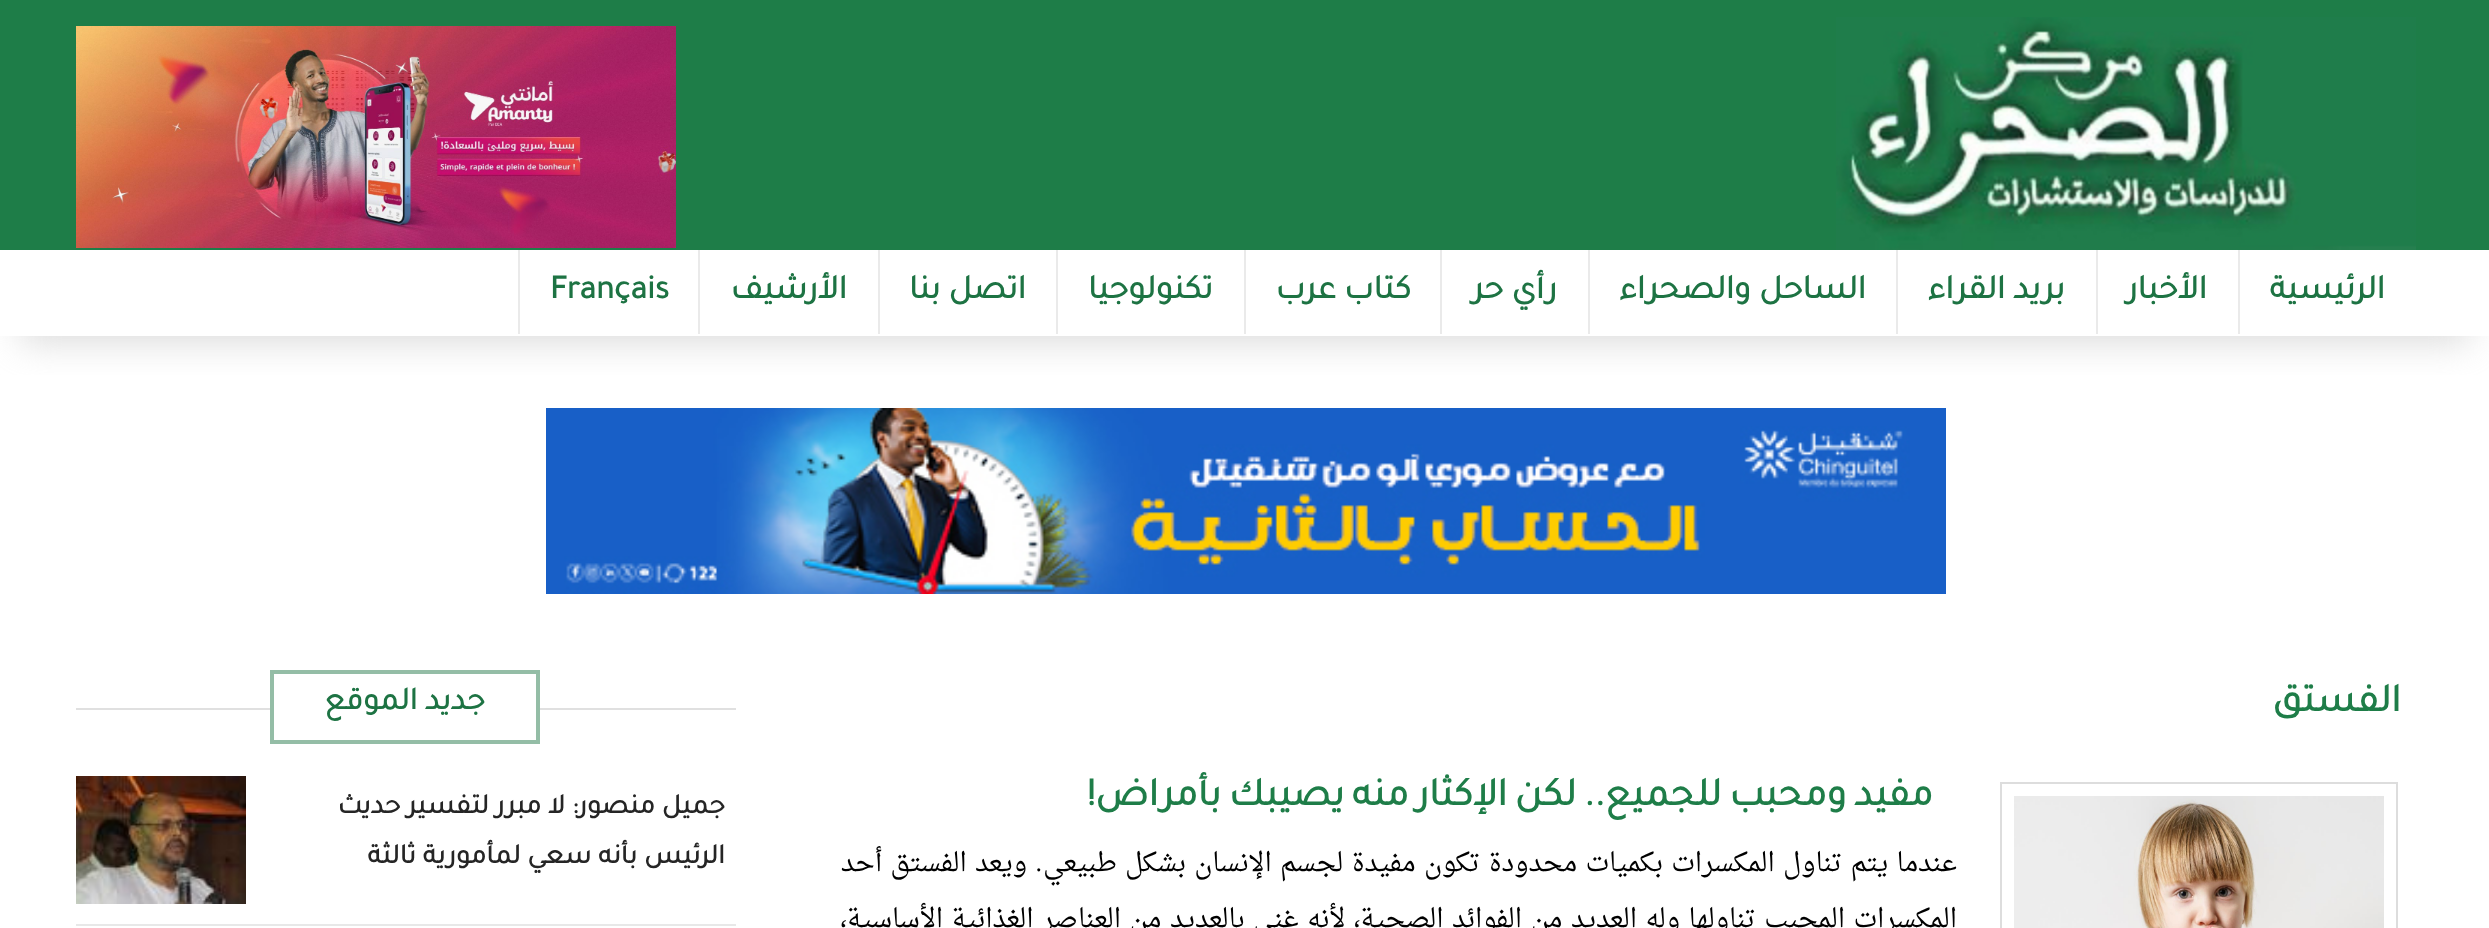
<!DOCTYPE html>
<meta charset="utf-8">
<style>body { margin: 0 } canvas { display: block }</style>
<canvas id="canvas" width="2489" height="928"></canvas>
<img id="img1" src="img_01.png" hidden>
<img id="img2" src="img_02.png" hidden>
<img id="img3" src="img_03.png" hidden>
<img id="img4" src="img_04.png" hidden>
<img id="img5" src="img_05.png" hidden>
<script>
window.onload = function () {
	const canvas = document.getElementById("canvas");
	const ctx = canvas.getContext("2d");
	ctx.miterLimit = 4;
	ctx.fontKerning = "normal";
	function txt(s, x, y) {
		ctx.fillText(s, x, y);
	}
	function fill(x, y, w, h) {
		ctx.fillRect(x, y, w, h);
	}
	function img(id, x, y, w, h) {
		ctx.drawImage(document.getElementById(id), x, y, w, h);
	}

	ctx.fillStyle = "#FFFFFF";
	fill(0, 0, 2489, 928);
	ctx.save();
	ctx.beginPath();
	ctx.rect(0, 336, 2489, 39);
	ctx.clip();
	ctx.fillStyle = "rgba(196, 196, 196, 0.62)";
	ctx.filter = "blur(18px)";
	ctx.beginPath();
	ctx.rect(20, 296, 2450, 46);
	ctx.fill();
	ctx.filter = "none";
	ctx.restore();
	ctx.fillStyle = "#1E7D48";
	fill(0, 0, 2489, 250);
	img("img1", 1836, 17, 580, 233);
	img("img2", 76, 26, 600, 222);
	ctx.fillStyle = "#EAEAEA";
	fill(2238, 250, 2, 84);
	fill(2096, 250, 2, 84);
	fill(1896, 250, 2, 84);
	fill(1588, 250, 2, 84);
	fill(1440, 250, 2, 84);
	fill(1244, 250, 2, 84);
	fill(1056, 250, 2, 84);
	fill(878, 250, 2, 84);
	fill(698, 250, 2, 84);
	fill(518, 250, 2, 84);
	img("img3", 546, 408, 1400, 186);
	ctx.strokeStyle = "#DDDDDD";
	ctx.lineWidth = 2;
	ctx.strokeRect(2001, 783, 396, 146);
	img("img4", 2014, 796, 370, 132);
	ctx.fillStyle = "#E0E0E0";
	fill(76, 708, 660, 2);
	ctx.fillStyle = "#FFFFFF";
	fill(274, 708, 262, 2);
	ctx.strokeStyle = "#94BDA6";
	ctx.lineWidth = 4;
	ctx.strokeRect(272, 672, 266, 70);
	ctx.fillStyle = "#E8E8E8";
	fill(76, 924, 660, 2);
	img("img5", 76, 776, 170, 128);
	ctx.direction = "rtl";
	ctx.font = "bold 34px Tajawal";
	ctx.fillStyle = "#1D7343";
	txt("الرئيسية", 2385, 298);
	txt("الأخبار", 2207, 298);
	txt("بريد القراء", 2065, 298);
	txt("الساحل والصحراء", 1866, 298);
	txt("رأي حر", 1557, 298);
	txt("كتاب عرب", 1411, 298);
	txt("تكنولوجيا", 1213, 298);
	txt("اتصل بنا", 1026, 298);
	txt("الأرشيف", 847, 298);
	ctx.direction = "ltr";
	txt("Français", 550, 298);
	ctx.direction = "rtl";
	ctx.font = "bold 40px Tajawal";
	ctx.fillStyle = "#1E7D48";
	txt("الفستق", 2401, 711);
	ctx.wordSpacing = "-2px";
	txt("مفيد ومحبب للجميع.. لكن الإكثار منه يصيبك بأمراض!", 1933, 805);
	ctx.wordSpacing = "1.5px";
	ctx.font = "26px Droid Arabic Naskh";
	ctx.fillStyle = "#000000";
	txt("عندما يتم تناول المكسرات بكميات محدودة تكون مفيدة لجسم الإنسان بشكل طبيعي", 1957, 871);
	ctx.wordSpacing = "0px";
	ctx.font = "26px Liberation Serif";
	txt(".", 1042, 871);
	ctx.wordSpacing = "1.5px";
	ctx.font = "26px Droid Arabic Naskh";
	txt("ويعد الفستق أحد", 1027, 871);
	ctx.wordSpacing = "1.75px";
	txt("المكسرات المحبب تناولها وله العديد من الفوائد الصحية، لأنه غني بالعديد من العناصر الغذائية الأساسية،", 1957, 927);
	ctx.wordSpacing = "0px";
	ctx.font = "bold 32px Tajawal";
	ctx.fillStyle = "#1D7343";
	txt("جديد الموقع", 485, 709);
	ctx.font = "bold 28px Tajawal";
	ctx.fillStyle = "#252525";
	txt("جميل منصور: لا مبرر لتفسير حديث", 725, 813);
	txt("الرئيس بأنه سعي لمأمورية ثالثة", 725, 863);
};
</script>
